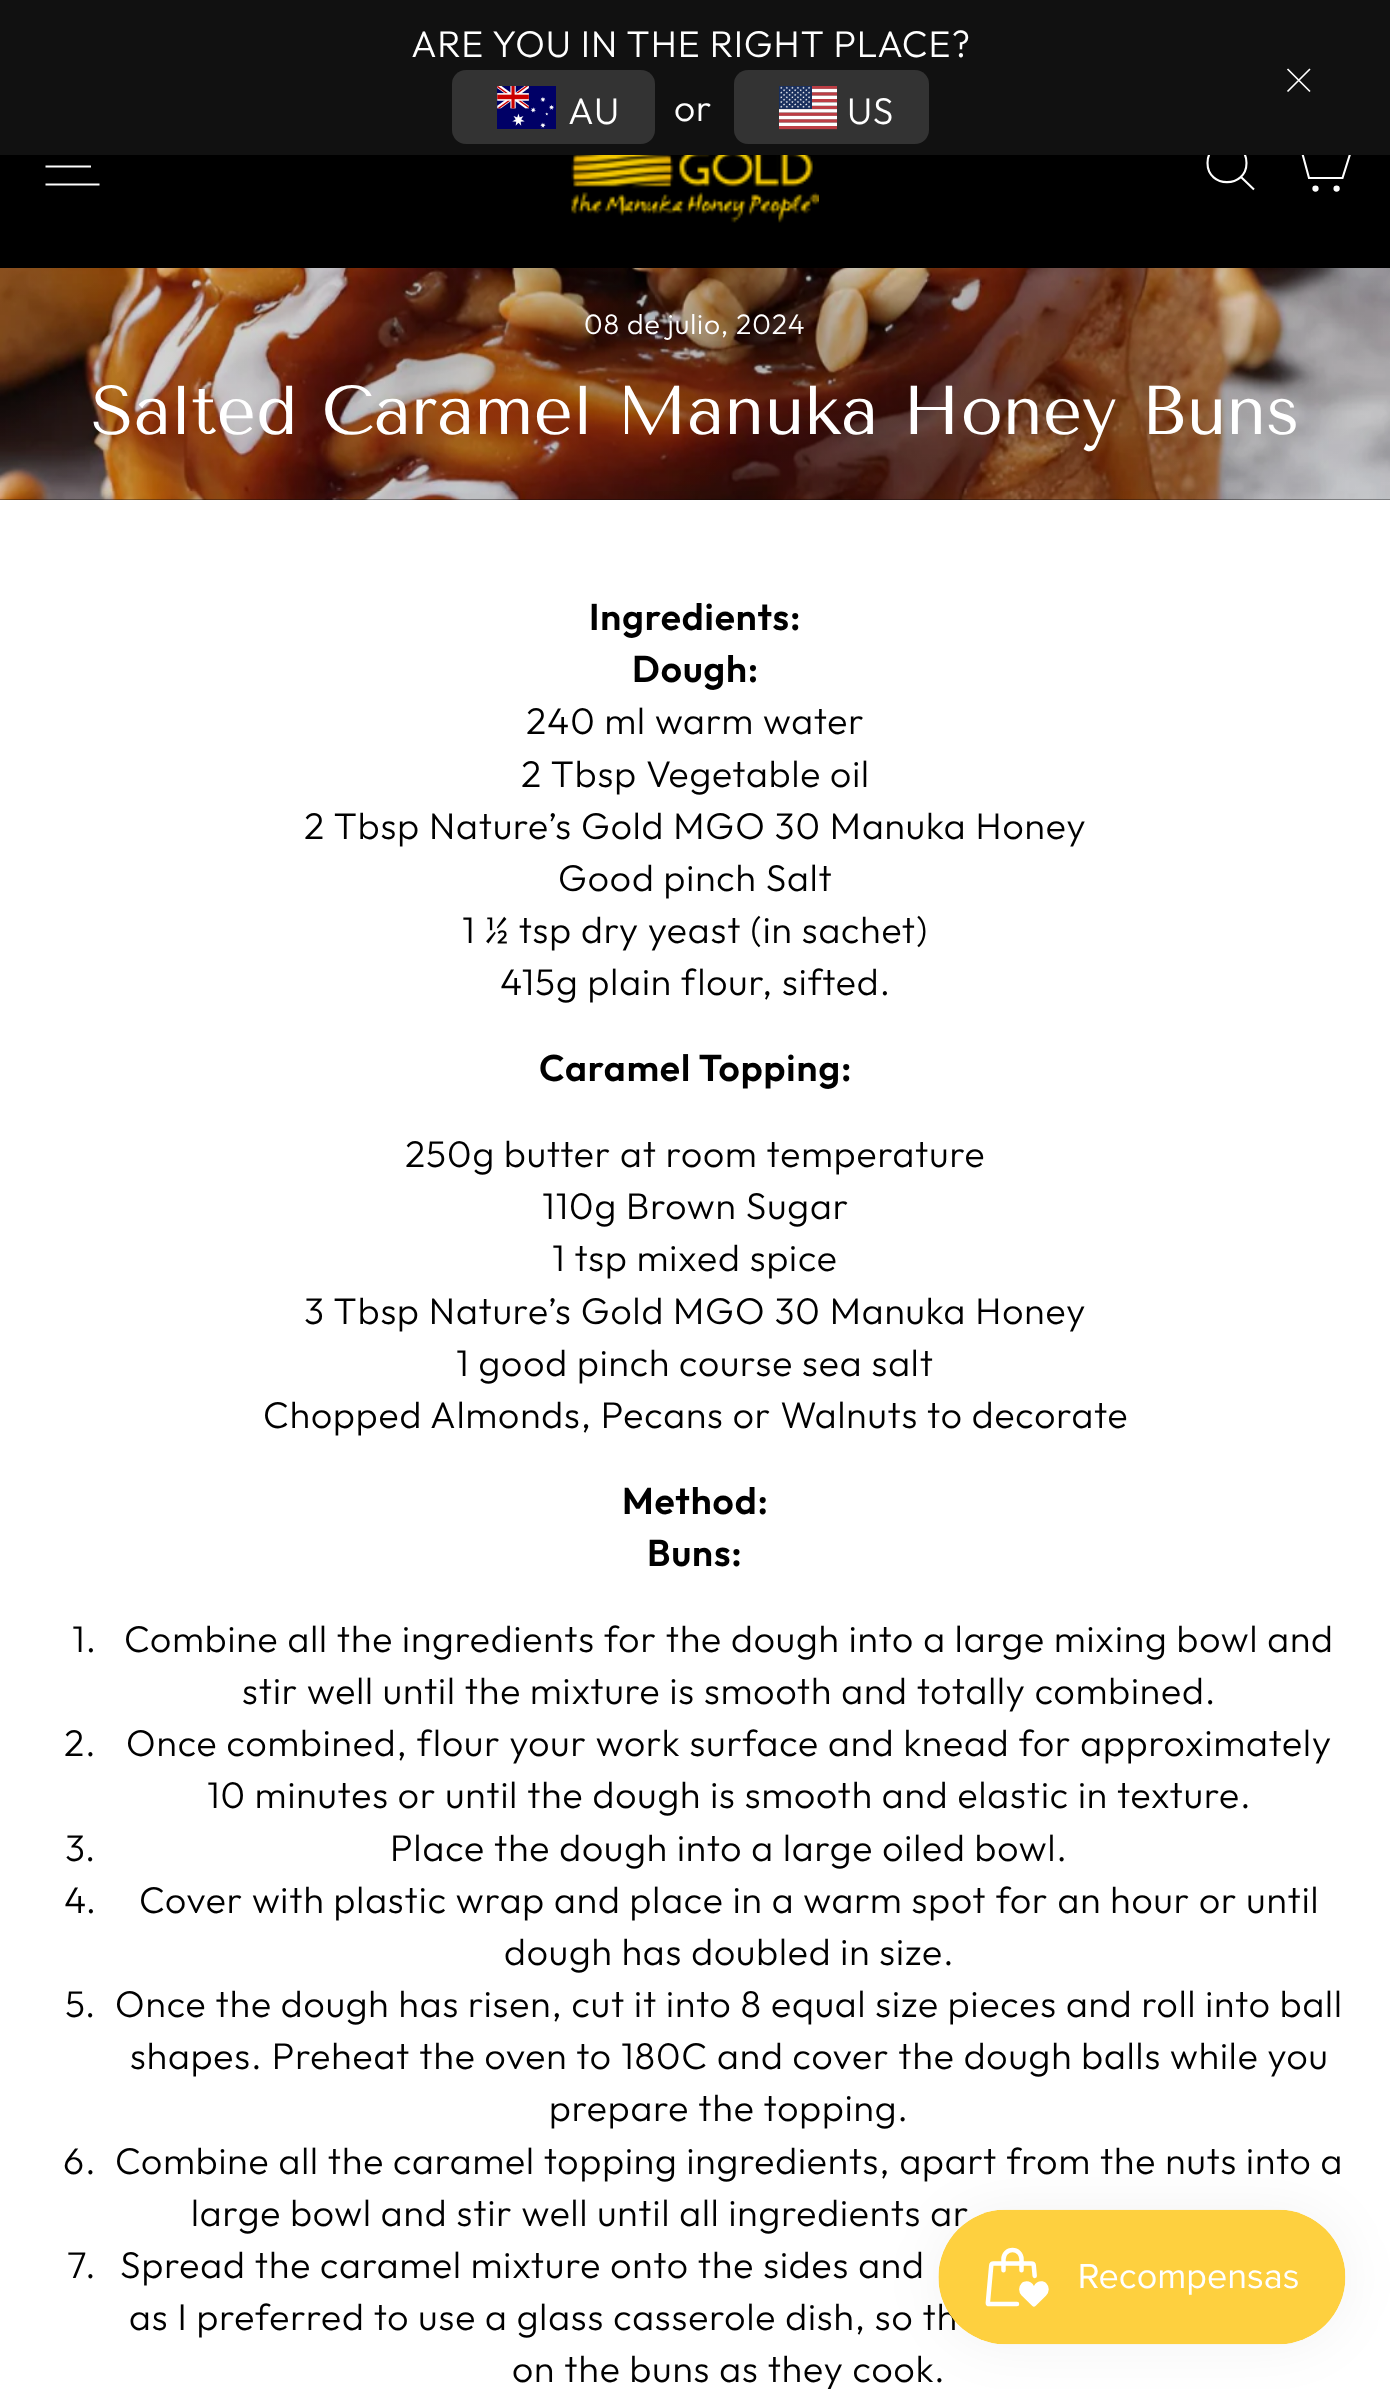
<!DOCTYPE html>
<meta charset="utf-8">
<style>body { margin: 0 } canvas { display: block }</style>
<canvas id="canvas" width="1390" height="2389"></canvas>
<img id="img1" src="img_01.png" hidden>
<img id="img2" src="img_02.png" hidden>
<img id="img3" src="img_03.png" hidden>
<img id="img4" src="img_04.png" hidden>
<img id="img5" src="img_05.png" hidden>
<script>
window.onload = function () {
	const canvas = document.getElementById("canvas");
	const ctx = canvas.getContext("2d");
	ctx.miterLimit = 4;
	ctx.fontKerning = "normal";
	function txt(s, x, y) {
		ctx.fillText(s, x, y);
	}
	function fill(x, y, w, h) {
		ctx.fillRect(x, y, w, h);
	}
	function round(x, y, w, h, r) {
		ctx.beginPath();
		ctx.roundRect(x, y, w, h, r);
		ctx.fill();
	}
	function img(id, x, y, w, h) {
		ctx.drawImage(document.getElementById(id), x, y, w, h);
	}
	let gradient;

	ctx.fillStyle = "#FFFFFF";
	fill(0, 0, 1390, 2389);
	ctx.fillStyle = "#000000";
	fill(0, 155, 1390, 113);
	ctx.beginPath();
	ctx.moveTo(45.5, 148.5);
	ctx.lineTo(99.5, 148.5);
	ctx.moveTo(45.5, 166.5);
	ctx.lineTo(91, 166.5);
	ctx.moveTo(45.5, 184.5);
	ctx.lineTo(99.5, 184.5);
	ctx.strokeStyle = "#FFFFFF";
	ctx.lineWidth = 2.1;
	ctx.stroke();
	ctx.beginPath();
	ctx.moveTo(1246.5, 163);
	ctx.bezierCurveTo(1246.5, 188.5, 1207.5, 188.5, 1207.5, 163);
	ctx.bezierCurveTo(1207.5, 137, 1246.5, 137, 1246.5, 163);
	ctx.closePath();
	ctx.moveTo(1254, 189.5);
	ctx.lineTo(1241, 177);
	ctx.stroke();
	ctx.beginPath();
	ctx.moveTo(1302, 151);
	ctx.lineTo(1351, 151);
	ctx.lineTo(1342.5, 178);
	ctx.lineTo(1309, 178);
	ctx.lineTo(1299, 141);
	ctx.lineTo(1290, 141);
	ctx.stroke();
	ctx.fillStyle = "#111111";
	fill(0, 0, 1390, 155);
	ctx.fillStyle = "#333333";
	round(452, 70, 203, 74, 14);
	img("img1", 497, 86, 59, 43);
	round(734, 70, 195, 74, 14);
	img("img2", 779, 86, 58, 44);
	ctx.beginPath();
	ctx.moveTo(1287.5, 69);
	ctx.lineTo(1310, 91.5);
	ctx.moveTo(1310, 69);
	ctx.lineTo(1287.5, 91.5);
	ctx.lineWidth = 1.7;
	ctx.stroke();
	img("img3", 571, 155, 248, 68);
	ctx.fillStyle = "#FFFFFF";
	ctx.beginPath();
	ctx.arc(1315.5, 188.6, 2.1, 0, Math.PI * 2);
	ctx.fill();
	ctx.lineWidth = 2.1;
	ctx.stroke();
	ctx.beginPath();
	ctx.arc(1336.6, 188.6, 2.1, 0, Math.PI * 2);
	ctx.fill();
	ctx.stroke();
	ctx.fillStyle = "#0E0E0E";
	fill(0, 499, 1390, 1);
	img("img4", 0, 268, 1390, 232);
	gradient = ctx.createRadialGradient(695, 1335.7, 0, 695, 1335.7, 1492);
	gradient.addColorStop(0, "rgba(0, 0, 0, 0.2)");
	gradient.addColorStop(0.6, "rgba(0, 0, 0, 0)");
	ctx.fillStyle = gradient;
	ctx.beginPath();
	ctx.rect(0, 268, 1390, 232);
	ctx.save();
	ctx.clip();
	ctx.scale(1, 420 / 1492);
	ctx.fillRect(0, 0, 1390, 8487);
	ctx.restore();
	ctx.fillStyle = "rgba(0, 0, 0, 0.05)";
	ctx.filter = "blur(28px)";
	ctx.beginPath();
	ctx.roundRect(938, 2210, 408, 135, 67.5);
	ctx.fill();
	ctx.filter = "none";
	ctx.letterSpacing = "0.93px";
	ctx.font = "300 37.25px Outfit";
	ctx.fillStyle = "#FFFFFF";
	txt("ARE YOU IN THE RIGHT PLACE?", 411, 57);
	txt("AU", 568, 124);
	txt("or", 674, 121);
	txt("US", 847, 124);
	ctx.font = "300 28.25px Outfit";
	txt("08 de julio, 2024", 584, 334);
	ctx.letterSpacing = "0px";
	ctx.font = "68.8px Tenor Sans";
	txt("Salted Caramel Manuka Honey Buns", 91, 434);
	ctx.letterSpacing = "0.93px";
	ctx.font = "600 37.25px Outfit";
	ctx.fillStyle = "#000000";
	txt("Ingredients:", 589, 630);
	txt("Dough:", 632, 682);
	ctx.font = "300 37.25px Outfit";
	txt("240 ml warm water", 526, 734);
	txt("2 Tbsp Vegetable oil", 521, 787);
	txt("2 Tbsp Nature’s Gold MGO 30 Manuka Honey", 304, 839);
	txt("Good pinch Salt", 558, 891);
	txt("1 ½ tsp dry yeast (in sachet)", 462, 943);
	txt("415g plain flour, sifted.", 500, 995);
	ctx.font = "600 37.25px Outfit";
	txt("Caramel Topping:", 539, 1081);
	ctx.font = "300 37.25px Outfit";
	txt("250g butter at room temperature", 405, 1167);
	txt("110g Brown Sugar", 542, 1219);
	txt("1 tsp mixed spice", 552, 1271);
	txt("3 Tbsp Nature’s Gold MGO 30 Manuka Honey", 304, 1324);
	txt("1 good pinch course sea salt", 456, 1376);
	txt("Chopped Almonds, Pecans or Walnuts to decorate", 263, 1428);
	ctx.font = "600 37.25px Outfit";
	txt("Method:", 622, 1514);
	txt("Buns:", 647, 1566);
	ctx.font = "300 37.25px Outfit";
	txt("1.", 72, 1652);
	txt("Combine all the ingredients for the dough into a large mixing bowl and", 124, 1652);
	txt("stir well until the mixture is smooth and totally combined.", 242, 1704);
	txt("2.", 64, 1756);
	txt("Once combined, flour your work surface and knead for approximately", 126, 1756);
	txt("10 minutes or until the dough is smooth and elastic in texture.", 207, 1808);
	txt("3.", 65, 1861);
	txt("Place the dough into a large oiled bowl.", 390, 1861);
	txt("4.", 64, 1913);
	txt("Cover with plastic wrap and place in a warm spot for an hour or until", 139, 1913);
	txt("dough has doubled in size.", 504, 1965);
	txt("5.", 65, 2017);
	txt("Once the dough has risen, cut it into 8 equal size pieces and roll into ball", 115, 2017);
	txt("shapes. Preheat the oven to 180C and cover the dough balls while you", 130, 2069);
	txt("prepare the topping.", 549, 2121);
	txt("6.", 63, 2174);
	txt("Combine all the caramel topping ingredients, apart from the nuts into a", 115, 2174);
	txt("large bowl and stir well until all ingredients ar", 191, 2226);
	txt("7.", 67, 2278);
	txt("Spread the caramel mixture onto the sides and", 120, 2278);
	txt("as I preferred to use a glass casserole dish, so th", 129, 2330);
	txt("on the buns as they cook.", 512, 2382);
	img("img5", 938, 2209, 408, 136);
};
</script>
